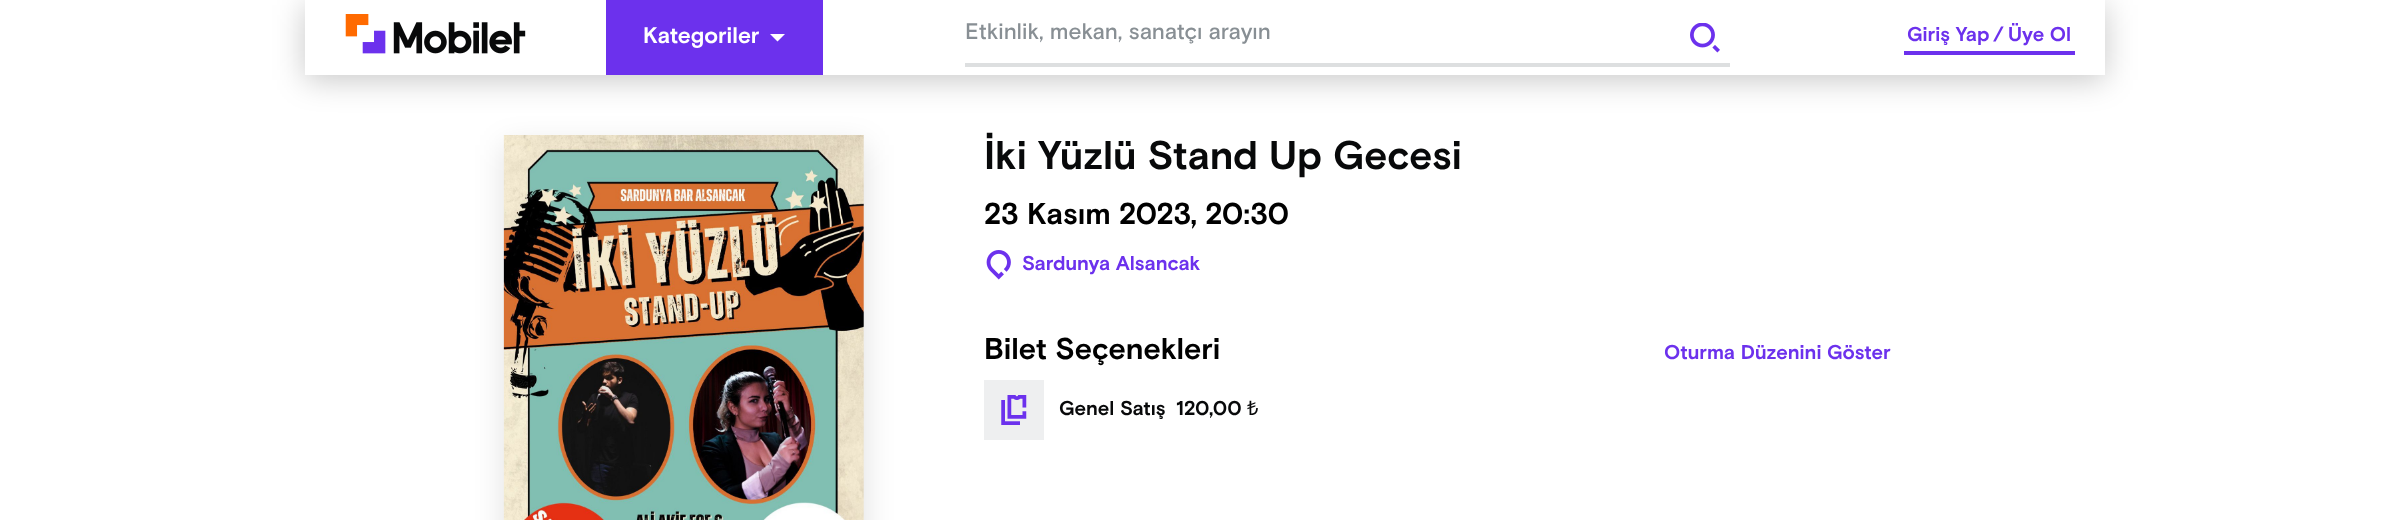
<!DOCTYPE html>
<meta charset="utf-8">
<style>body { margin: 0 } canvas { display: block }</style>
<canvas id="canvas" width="2408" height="520"></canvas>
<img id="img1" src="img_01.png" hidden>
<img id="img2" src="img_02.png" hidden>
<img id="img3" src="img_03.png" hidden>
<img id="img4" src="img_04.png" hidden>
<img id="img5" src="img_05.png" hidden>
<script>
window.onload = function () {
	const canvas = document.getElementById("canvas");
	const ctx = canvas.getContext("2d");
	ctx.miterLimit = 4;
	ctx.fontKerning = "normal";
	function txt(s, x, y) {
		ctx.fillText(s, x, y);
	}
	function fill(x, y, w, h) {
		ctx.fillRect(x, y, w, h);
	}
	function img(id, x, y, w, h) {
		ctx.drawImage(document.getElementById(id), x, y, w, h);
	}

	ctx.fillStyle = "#FFFFFF";
	fill(0, 0, 2408, 520);
	ctx.save();
	ctx.beginPath();
	ctx.moveTo(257, 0);
	ctx.lineTo(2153, 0);
	ctx.lineTo(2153, 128);
	ctx.lineTo(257, 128);
	ctx.closePath();
	ctx.moveTo(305, 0);
	ctx.lineTo(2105, 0);
	ctx.lineTo(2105, 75);
	ctx.lineTo(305, 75);
	ctx.closePath();
	ctx.clip("evenodd");
	ctx.fillStyle = "rgba(0, 0, 0, 0.22)";
	ctx.filter = "blur(15.5px)";
	ctx.beginPath();
	ctx.rect(305, 5, 1800, 75);
	ctx.fill();
	ctx.filter = "none";
	ctx.restore();
	img("img1", 345, 14, 181, 40);
	ctx.fillStyle = "#6C31ED";
	fill(606, 0, 217, 75);
	ctx.fillStyle = "#FFFFFF";
	ctx.beginPath();
	ctx.moveTo(777.5, 41.5);
	ctx.lineTo(770, 34);
	ctx.lineTo(785, 34);
	ctx.closePath();
	ctx.fill("evenodd");
	ctx.fillStyle = "#DDDFE0";
	fill(965, 63, 765, 4);
	img("img2", 1690, 23, 30, 30);
	ctx.fillStyle = "#6C31ED";
	fill(1904, 51, 171, 4);
	ctx.fillStyle = "rgba(0, 0, 0, 0.12)";
	ctx.filter = "blur(15px)";
	ctx.beginPath();
	ctx.rect(504, 145, 361, 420);
	ctx.fill();
	ctx.filter = "none";
	img("img3", 503, 135, 361, 385);
	img("img4", 986, 250, 25, 30);
	ctx.fillStyle = "#EEEFF0";
	fill(984, 380, 60, 60);
	img("img5", 1001, 395, 26, 30);
	ctx.font = "bold 22.5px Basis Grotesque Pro";
	ctx.fillStyle = "#FFFFFF";
	txt("Kategoriler", 643, 43);
	ctx.font = "500 22.5px Basis Grotesque Pro";
	ctx.fillStyle = "#888F94";
	txt("Etkinlik, mekan, sanatçı arayın", 965, 39);
	ctx.font = "bold 20px Basis Grotesque Pro";
	ctx.fillStyle = "#6C31ED";
	txt("Giriş Yap", 1907, 41);
	txt("/", 1993, 41);
	txt("Üye Ol", 2008, 41);
	ctx.font = "bold 40px Basis Grotesque Pro";
	ctx.fillStyle = "#08090A";
	txt("İki Yüzlü Stand Up Gecesi", 984, 169);
	ctx.font = "bold 30px Basis Grotesque Pro";
	ctx.fillStyle = "#000000";
	txt("23 Kasım 2023, 20:30", 984, 224);
	ctx.font = "bold 20px Basis Grotesque Pro";
	ctx.fillStyle = "#6C31ED";
	txt("Sardunya Alsancak", 1022, 270);
	ctx.font = "bold 30px Basis Grotesque Pro";
	ctx.fillStyle = "#000000";
	txt("Bilet Seçenekleri", 984, 359);
	ctx.font = "bold 20px Basis Grotesque Pro";
	ctx.fillStyle = "#6C31ED";
	txt("Oturma Düzenini Göster", 1664, 359);
	ctx.fillStyle = "#08090A";
	txt("Genel Satış", 1059, 415);
	txt("120,00", 1176, 415);
	ctx.font = "20px Noto Sans";
	txt("₺", 1247, 415);
};
</script>
